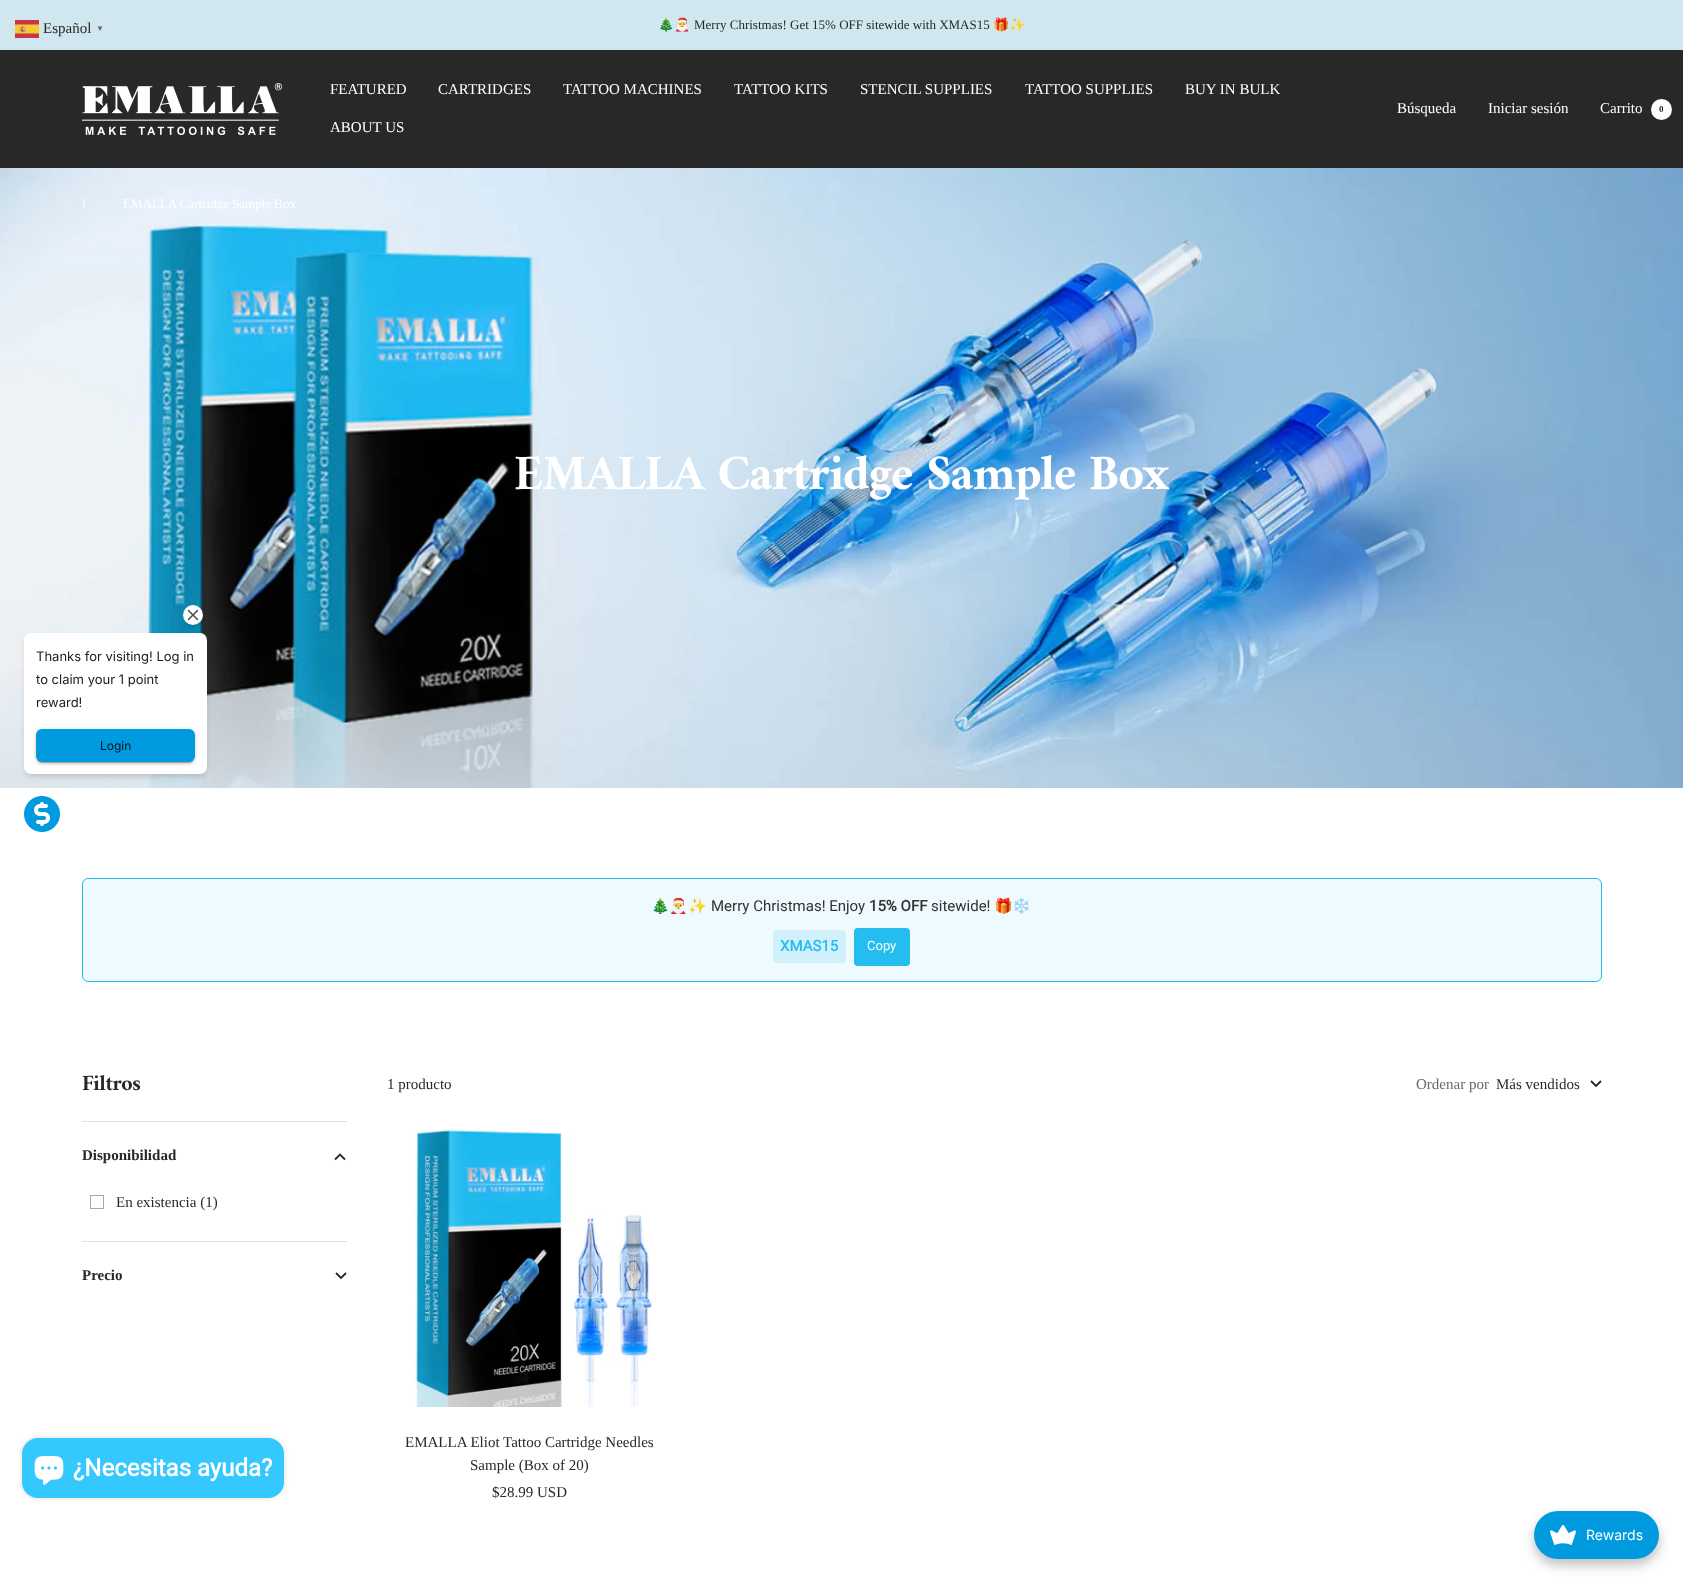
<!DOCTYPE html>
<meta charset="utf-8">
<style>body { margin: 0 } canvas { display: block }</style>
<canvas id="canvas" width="1683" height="1583"></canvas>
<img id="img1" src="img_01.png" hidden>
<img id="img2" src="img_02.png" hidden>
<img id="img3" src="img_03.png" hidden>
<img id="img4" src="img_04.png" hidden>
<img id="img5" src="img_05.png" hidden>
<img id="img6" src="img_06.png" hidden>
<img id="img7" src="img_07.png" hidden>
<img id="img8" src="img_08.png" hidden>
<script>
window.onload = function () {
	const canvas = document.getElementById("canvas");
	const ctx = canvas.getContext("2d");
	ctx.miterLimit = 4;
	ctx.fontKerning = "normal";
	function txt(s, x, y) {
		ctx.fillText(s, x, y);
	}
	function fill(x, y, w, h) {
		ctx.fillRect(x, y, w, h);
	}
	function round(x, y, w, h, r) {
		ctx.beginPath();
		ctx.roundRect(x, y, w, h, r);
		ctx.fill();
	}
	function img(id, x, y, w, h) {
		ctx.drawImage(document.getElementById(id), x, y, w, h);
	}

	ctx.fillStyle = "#FFFFFF";
	fill(0, 0, 1683, 1583);
	ctx.fillStyle = "#D0E7EF";
	fill(0, 0, 1683, 50);
	img("img1", 15, 20, 24, 18);
	ctx.fillStyle = "#282828";
	fill(0, 50, 1683, 118);
	img("img2", 82, 83, 200, 52);
	ctx.fillStyle = "#FFFFFF";
	ctx.beginPath();
	ctx.arc(1661.5, 109.5, 10.5, 0, Math.PI * 2);
	ctx.fill();
	img("img3", 0, 168, 1683, 620);
	ctx.fillStyle = "#EEFAFE";
	ctx.beginPath();
	ctx.roundRect(82.5, 878.5, 1519, 103, 5.5);
	ctx.fill();
	ctx.strokeStyle = "#25BDEF";
	ctx.stroke();
	ctx.fillStyle = "#D0F1FC";
	round(773, 930, 73, 33, 4);
	ctx.fillStyle = "#25BDEF";
	round(854, 928, 56, 38, 4);
	ctx.fillStyle = "#DFDFDF";
	fill(82, 1121, 265, 1);
	ctx.beginPath();
	ctx.moveTo(345, 1159.5);
	ctx.lineTo(340, 1154.5);
	ctx.lineTo(335, 1159.5);
	ctx.strokeStyle = "#282828";
	ctx.lineWidth = 1.8;
	ctx.stroke();
	ctx.strokeStyle = "#A9A9A9";
	ctx.lineWidth = 1;
	ctx.strokeRect(90.5, 1195.5, 13, 13);
	fill(82, 1241, 265, 1);
	ctx.beginPath();
	ctx.moveTo(336, 1273);
	ctx.lineTo(341, 1278);
	ctx.lineTo(346, 1273);
	ctx.strokeStyle = "#282828";
	ctx.lineWidth = 1.8;
	ctx.stroke();
	ctx.beginPath();
	ctx.moveTo(1591, 1081);
	ctx.lineTo(1596, 1086);
	ctx.lineTo(1601, 1081);
	ctx.stroke();
	img("img4", 412, 1129, 241, 278);
	ctx.fillStyle = "rgba(26, 26, 26, 0.2)";
	ctx.filter = "blur(3px)";
	ctx.beginPath();
	ctx.roundRect(26, 639, 179, 137, 6);
	ctx.fill();
	ctx.filter = "none";
	img("img5", 183, 605, 20, 24);
	ctx.fillStyle = "#FFFFFF";
	round(24, 633, 183, 141, 7);
	ctx.fillStyle = "rgba(0, 0, 0, 0.12)";
	ctx.filter = "blur(2.5px)";
	ctx.beginPath();
	ctx.roundRect(36, 730, 159, 33, 6);
	ctx.fill();
	ctx.filter = "none";
	ctx.fillStyle = "rgba(0, 0, 0, 0.14)";
	ctx.filter = "blur(1px)";
	ctx.beginPath();
	ctx.roundRect(36, 731, 159, 33, 6);
	ctx.fill();
	ctx.filter = "none";
	ctx.fillStyle = "rgba(0, 0, 0, 0.2)";
	ctx.filter = "blur(0.5px)";
	ctx.beginPath();
	ctx.roundRect(38, 734, 155, 29, 4);
	ctx.fill();
	ctx.filter = "none";
	ctx.fillStyle = "#009BDF";
	round(36, 729, 159, 33, 6);
	img("img6", 24, 796, 36, 36);
	ctx.fillStyle = "rgba(0, 0, 0, 0.25)";
	ctx.filter = "blur(6px)";
	ctx.beginPath();
	ctx.roundRect(1534, 1517, 125, 48, 24);
	ctx.fill();
	ctx.filter = "none";
	ctx.fillStyle = "#009BDF";
	round(1534, 1511, 125, 48, 24);
	img("img7", 1550, 1525, 26, 20);
	ctx.fillStyle = "rgba(0, 0, 0, 0.15)";
	ctx.filter = "blur(2.5px)";
	ctx.beginPath();
	ctx.roundRect(22, 1438, 262, 60, 16);
	ctx.fill();
	ctx.filter = "none";
	ctx.fillStyle = "#34C8FF";
	round(22, 1438, 262, 60, 16);
	img("img8", 34, 1456, 30, 29);
	ctx.font = "15px Liberation Serif";
	ctx.fillStyle = "#282828";
	txt("Español", 43, 33);
	ctx.font = "bold 8px Liberation Serif";
	ctx.fillStyle = "#696969";
	txt("▼", 96, 31);
	ctx.font = "13px Noto Color Emoji";
	ctx.fillStyle = "#282828";
	txt("🎄🎅", 658, 29);
	ctx.font = "13px Liberation Serif";
	txt("Merry Christmas! Get 15% OFF sitewide with XMAS15", 694, 29);
	ctx.font = "13px Noto Color Emoji";
	txt("🎁✨", 993, 29);
	ctx.font = "15px Liberation Serif";
	ctx.fillStyle = "#FFFFFF";
	txt("FEATURED", 330, 94);
	txt("CARTRIDGES", 438, 94);
	txt("TATTOO MACHINES", 563, 94);
	txt("TATTOO KITS", 734, 94);
	txt("STENCIL SUPPLIES", 860, 94);
	txt("TATTOO SUPPLIES", 1025, 94);
	txt("BUY IN BULK", 1185, 94);
	txt("ABOUT US", 330, 132);
	txt("Búsqueda", 1397, 113);
	txt("Iniciar sesión", 1488, 113);
	txt("Carrito", 1600, 113);
	ctx.font = "bold 9px Liberation Serif";
	ctx.fillStyle = "#282828";
	txt("0", 1659, 112);
	ctx.font = "13px Liberation Serif";
	ctx.fillStyle = "#F7FAFD";
	txt("I", 82, 208);
	ctx.fillStyle = "#FFFFFF";
	txt("EMALLA Cartridge Sample Box", 123, 208);
	ctx.letterSpacing = "-1px";
	ctx.font = "bold 50px Amiri";
	txt("EMALLA Cartridge Sample Box", 514, 489);
	ctx.letterSpacing = "0px";
	ctx.font = "15px Noto Color Emoji";
	ctx.fillStyle = "#333333";
	txt("🎄🎅✨", 651, 911);
	ctx.font = "15px Roboto";
	txt("Merry Christmas! Enjoy", 711, 911);
	ctx.font = "bold 15px Roboto";
	txt("15% OFF", 869, 911);
	ctx.font = "15px Roboto";
	txt("sitewide!", 931, 911);
	ctx.font = "15px Noto Color Emoji";
	txt("🎁❄️", 994, 911);
	ctx.font = "bold 15px Roboto";
	ctx.fillStyle = "#25BDEF";
	txt("XMAS15", 780, 951);
	ctx.font = "13px Roboto";
	ctx.fillStyle = "#FFFFFF";
	txt("Copy", 867, 950);
	ctx.letterSpacing = "-0.5px";
	ctx.font = "bold 22px Amiri";
	ctx.fillStyle = "#282828";
	txt("Filtros", 82, 1090);
	ctx.letterSpacing = "0px";
	ctx.font = "bold 15px Liberation Serif";
	txt("Disponibilidad", 82, 1160);
	ctx.font = "15px Liberation Serif";
	txt("En existencia (1)", 116, 1207);
	ctx.font = "bold 15px Liberation Serif";
	txt("Precio", 82, 1280);
	ctx.font = "15px Liberation Serif";
	txt("1 producto", 387, 1089);
	ctx.fillStyle = "#696969";
	txt("Ordenar por", 1416, 1089);
	ctx.fillStyle = "#282828";
	txt("Más vendidos", 1496, 1089);
	txt("EMALLA Eliot Tattoo Cartridge Needles", 405, 1447);
	txt("Sample (Box of 20)", 470, 1470);
	txt("$28.99 USD", 492, 1497);
	ctx.font = "13px Inter";
	ctx.fillStyle = "#212121";
	txt("Thanks for visiting! Log in", 36, 661);
	txt("to claim your 1 point", 36, 684);
	txt("reward!", 36, 707);
	ctx.font = "12px Inter";
	ctx.fillStyle = "#00141D";
	txt("Login", 100, 750);
	ctx.font = "14px Inter";
	ctx.fillStyle = "#FFFFFF";
	txt("Rewards", 1586, 1540);
	ctx.font = "bold 24px Roboto";
	txt("¿Necesitas ayuda?", 73, 1476);
};
</script>
